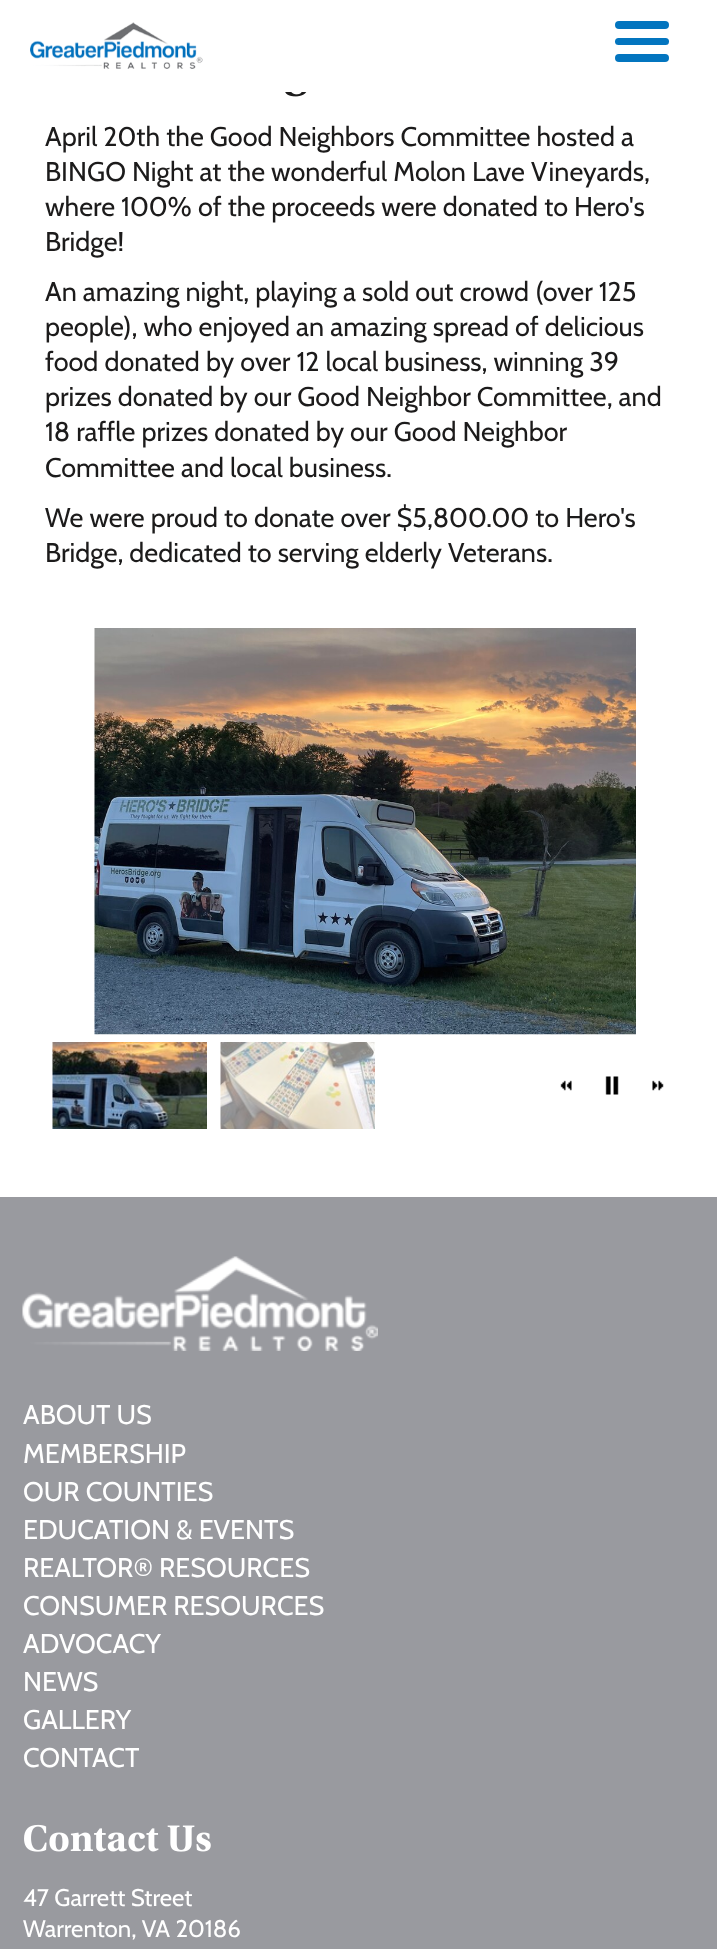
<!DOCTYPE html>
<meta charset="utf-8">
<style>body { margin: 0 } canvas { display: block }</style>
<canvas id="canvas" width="717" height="1949"></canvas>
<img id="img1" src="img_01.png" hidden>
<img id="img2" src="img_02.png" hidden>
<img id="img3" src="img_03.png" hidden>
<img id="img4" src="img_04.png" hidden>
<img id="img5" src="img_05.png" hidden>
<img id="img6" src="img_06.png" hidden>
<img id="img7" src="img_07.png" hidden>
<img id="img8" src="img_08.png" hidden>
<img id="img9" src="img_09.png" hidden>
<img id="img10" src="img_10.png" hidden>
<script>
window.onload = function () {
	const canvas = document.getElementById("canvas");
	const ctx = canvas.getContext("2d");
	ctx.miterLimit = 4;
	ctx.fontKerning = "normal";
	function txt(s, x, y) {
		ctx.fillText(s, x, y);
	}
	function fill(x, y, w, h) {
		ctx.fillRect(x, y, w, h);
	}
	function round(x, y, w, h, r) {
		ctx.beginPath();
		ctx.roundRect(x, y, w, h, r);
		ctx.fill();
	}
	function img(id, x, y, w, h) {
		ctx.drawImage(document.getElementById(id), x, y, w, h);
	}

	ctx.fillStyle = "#FFFFFF";
	fill(0, 0, 717, 1949);
	img("img1", 30, 22, 173, 47);
	ctx.fillStyle = "#0375BF";
	round(615, 21, 54, 8, 4);
	round(615, 38, 54, 7, 3.5);
	round(615, 54, 54, 8, 4);
	img("img2", 285, 92, 22, 5);
	img("img3", 94, 628, 542, 407);
	img("img4", 52, 1042, 155, 87);
	img("img5", 220, 1042, 155, 87);
	img("img6", 560, 1080, 12, 11);
	img("img7", 605, 1076, 14, 19);
	img("img8", 652, 1080, 12, 11);
	ctx.fillStyle = "#999A9F";
	fill(0, 1197, 717, 752);
	img("img9", 22, 1256, 356, 95);
	img("img10", 24, 1824, 187, 28);
	ctx.font = "27px Cabin";
	ctx.fillStyle = "#1C1B1B";
	txt("April 20th the Good Neighbors Committee hosted a", 45, 146);
	txt("BINGO Night at the wonderful Molon Lave Vineyards,", 45, 181);
	txt("where 100% of the proceeds were donated to Hero's", 45, 216);
	txt("Bridge!", 45, 251);
	txt("An amazing night, playing a sold out crowd (over 125", 45, 301);
	txt("people), who enjoyed an amazing spread of delicious", 45, 336);
	txt("food donated by over 12 local business, winning 39", 45, 371);
	txt("prizes donated by our Good Neighbor Committee, and", 45, 406);
	txt("18 raffle prizes donated by our Good Neighbor", 45, 441);
	txt("Committee and local business.", 45, 477);
	txt("We were proud to donate over $5,800.00 to Hero's", 45, 527);
	txt("Bridge, dedicated to serving elderly Veterans.", 45, 562);
	ctx.fillStyle = "#FFFFFF";
	txt("ABOUT US", 23, 1424);
	txt("MEMBERSHIP", 23, 1463);
	txt("OUR COUNTIES", 23, 1501);
	txt("EDUCATION & EVENTS", 23, 1539);
	txt("REALTOR® RESOURCES", 23, 1577);
	txt("CONSUMER RESOURCES", 23, 1615);
	txt("ADVOCACY", 23, 1653);
	txt("NEWS", 23, 1691);
	txt("GALLERY", 23, 1729);
	txt("CONTACT", 23, 1767);
	ctx.font = "24px Cabin";
	txt("47 Garrett Street", 23, 1906);
	txt("Warrenton, VA 20186", 23, 1937);
};
</script>
